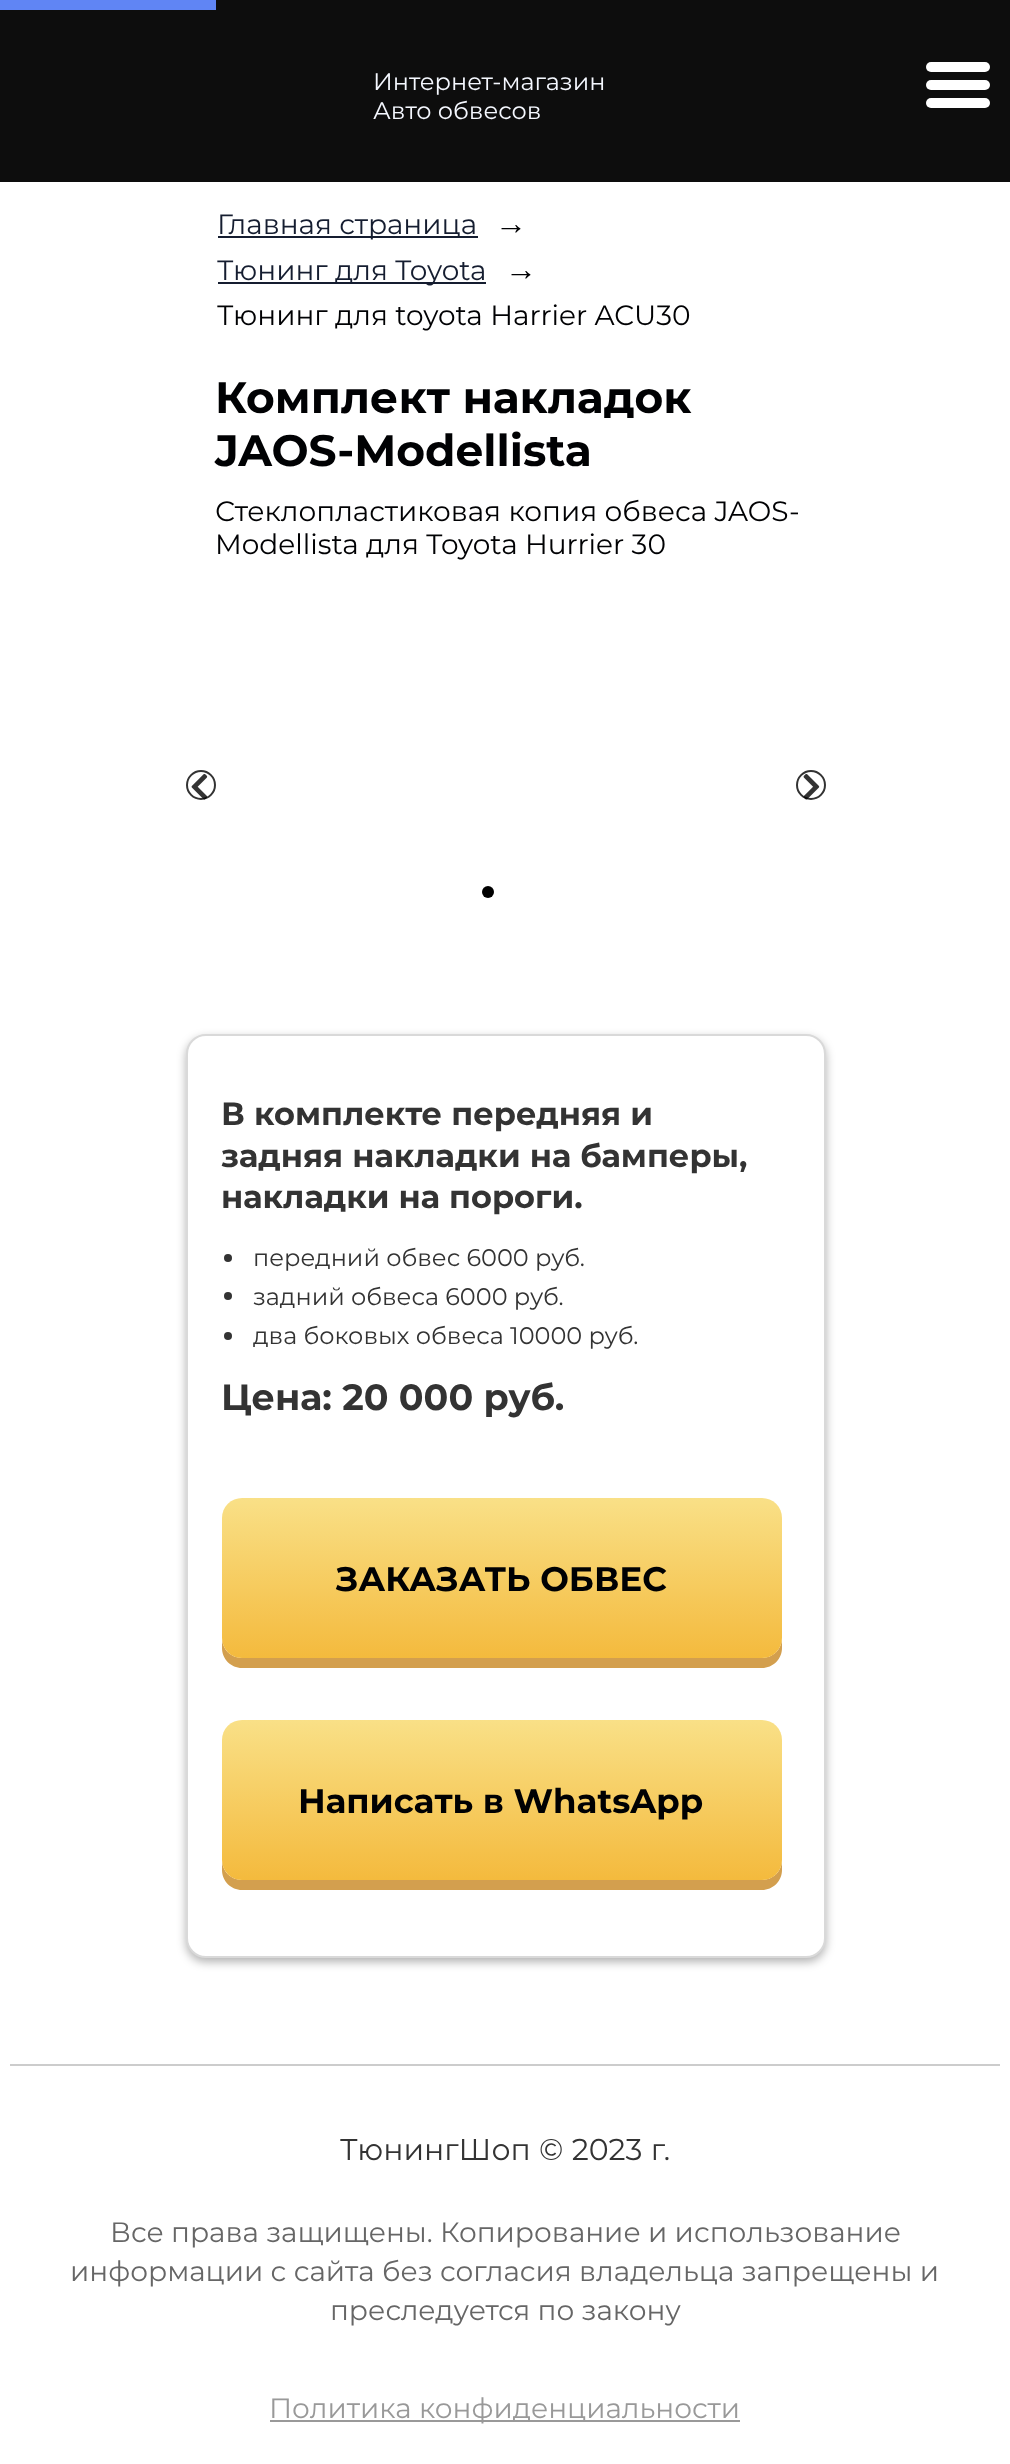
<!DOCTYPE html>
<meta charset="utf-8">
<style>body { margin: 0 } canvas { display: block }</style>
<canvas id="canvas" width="1010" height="2464"></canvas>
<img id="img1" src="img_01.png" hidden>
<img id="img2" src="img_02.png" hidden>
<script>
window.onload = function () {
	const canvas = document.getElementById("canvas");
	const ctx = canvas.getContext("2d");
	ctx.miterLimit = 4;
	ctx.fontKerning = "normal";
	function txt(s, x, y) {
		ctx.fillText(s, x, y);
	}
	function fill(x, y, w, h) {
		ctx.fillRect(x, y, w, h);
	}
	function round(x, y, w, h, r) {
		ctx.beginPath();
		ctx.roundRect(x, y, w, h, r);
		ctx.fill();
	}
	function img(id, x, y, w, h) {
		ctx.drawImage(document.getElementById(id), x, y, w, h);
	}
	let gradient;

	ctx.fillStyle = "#FFFFFF";
	fill(0, 0, 1010, 2464);
	ctx.fillStyle = "#0D0D0D";
	fill(0, 0, 1010, 182);
	ctx.fillStyle = "#6085F4";
	fill(0, 0, 216, 10);
	ctx.fillStyle = "#FFFFFF";
	round(926, 62, 64, 10, 5);
	round(926, 80, 64, 10, 5);
	round(926, 98, 64, 10, 5);
	ctx.fillStyle = "#151D30";
	fill(218, 236, 260, 2);
	fill(218, 282, 268, 2);
	ctx.beginPath();
	ctx.arc(201, 785, 14, 0, Math.PI * 2);
	ctx.strokeStyle = "#333333";
	ctx.lineWidth = 2;
	ctx.stroke();
	img("img1", 191, 774, 17, 26);
	ctx.beginPath();
	ctx.arc(811, 785, 14, 0, Math.PI * 2);
	ctx.stroke();
	img("img2", 803, 774, 17, 26);
	ctx.fillStyle = "#000000";
	ctx.beginPath();
	ctx.arc(488, 892, 6, 0, Math.PI * 2);
	ctx.fill();
	ctx.fillStyle = "rgba(0, 0, 0, 0.3)";
	ctx.filter = "blur(5px)";
	ctx.beginPath();
	ctx.roundRect(186, 1038, 640, 924, 20);
	ctx.fill();
	ctx.filter = "none";
	ctx.fillStyle = "#FFFFFF";
	ctx.beginPath();
	ctx.roundRect(187, 1035, 638, 922, 19);
	ctx.fill();
	ctx.strokeStyle = "#D9D9D9";
	ctx.stroke();
	ctx.fillStyle = "#333333";
	ctx.beginPath();
	ctx.arc(228, 1258, 4, 0, Math.PI * 2);
	ctx.fill();
	ctx.beginPath();
	ctx.arc(228, 1296, 4, 0, Math.PI * 2);
	ctx.fill();
	ctx.beginPath();
	ctx.arc(228, 1336, 4, 0, Math.PI * 2);
	ctx.fill();
	ctx.fillStyle = "#D39F4E";
	ctx.beginPath();
	ctx.moveTo(222, 1638);
	ctx.lineTo(222, 1648);
	ctx.bezierCurveTo(222, 1659, 231, 1668, 242, 1668);
	ctx.lineTo(762, 1668);
	ctx.bezierCurveTo(773, 1668, 782, 1659, 782, 1648);
	ctx.lineTo(782, 1638);
	ctx.bezierCurveTo(782, 1649, 773, 1658, 762, 1658);
	ctx.lineTo(242, 1658);
	ctx.bezierCurveTo(231, 1658, 222, 1649, 222, 1638);
	ctx.closePath();
	ctx.fill();
	gradient = ctx.createLinearGradient(502, 1498, 502, 1658);
	gradient.addColorStop(0, "#F9E087");
	gradient.addColorStop(1, "#F4BA3D");
	ctx.fillStyle = gradient;
	round(222, 1498, 560, 160, 20);
	ctx.fillStyle = "#D39F4E";
	ctx.beginPath();
	ctx.moveTo(222, 1860);
	ctx.lineTo(222, 1870);
	ctx.bezierCurveTo(222, 1881, 231, 1890, 242, 1890);
	ctx.lineTo(762, 1890);
	ctx.bezierCurveTo(773, 1890, 782, 1881, 782, 1870);
	ctx.lineTo(782, 1860);
	ctx.bezierCurveTo(782, 1871, 773, 1880, 762, 1880);
	ctx.lineTo(242, 1880);
	ctx.bezierCurveTo(231, 1880, 222, 1871, 222, 1860);
	ctx.closePath();
	ctx.fill();
	gradient = ctx.createLinearGradient(502, 1720, 502, 1880);
	gradient.addColorStop(0, "#F9E087");
	gradient.addColorStop(1, "#F4BA3D");
	ctx.fillStyle = gradient;
	round(222, 1720, 560, 160, 20);
	ctx.fillStyle = "#CCCCCC";
	fill(10, 2064, 990, 2);
	ctx.fillStyle = "#999999";
	fill(270, 2420, 470, 2);
	ctx.font = "24px Montserrat";
	ctx.fillStyle = "#F5F8FF";
	txt("Интернет-магазин", 373, 90);
	txt("Авто обвесов", 373, 119);
	ctx.font = "28px Montserrat";
	ctx.fillStyle = "#151D30";
	txt("Главная страница", 217, 234);
	ctx.font = "32px Liberation Sans";
	ctx.fillStyle = "#000103";
	txt("→", 495, 234);
	ctx.font = "28px Montserrat";
	ctx.fillStyle = "#151D30";
	txt("Тюнинг для Toyota", 217, 280);
	ctx.font = "32px Liberation Sans";
	ctx.fillStyle = "#000103";
	txt("→", 505, 280);
	ctx.font = "28px Montserrat";
	txt("Тюнинг для toyota Harrier ACU30", 217, 325);
	ctx.font = "bold 44px Montserrat";
	txt("Комплект накладок", 215, 413);
	txt("JAOS-Modellista", 215, 466);
	ctx.font = "28px Montserrat";
	txt("Стеклопластиковая копия обвеса JAOS-", 215, 521);
	txt("Modellista для Toyota Hurrier 30", 215, 554);
	ctx.font = "bold 32px Montserrat";
	ctx.fillStyle = "#333333";
	txt("В комплекте передняя и", 221, 1125);
	txt("задняя накладки на бамперы,", 221, 1167);
	txt("накладки на пороги.", 221, 1208);
	ctx.font = "24px Montserrat";
	txt("передний обвес 6000 руб.", 253, 1266);
	txt("задний обвеса 6000 руб.", 253, 1305);
	txt("два боковых обвеса 10000 руб.", 253, 1344);
	ctx.font = "bold 36.5px Montserrat";
	txt("Цена: 20 000 руб.", 221, 1410);
	ctx.font = "bold 34px Montserrat";
	ctx.fillStyle = "#000103";
	txt("ЗАКАЗАТЬ ОБВЕС", 336, 1591);
	txt("Написать в WhatsApp", 298, 1813);
	ctx.wordSpacing = "0.5px";
	ctx.font = "30px Montserrat";
	ctx.fillStyle = "#333333";
	txt("ТюнингШоп © 2023 г.", 340, 2160);
	ctx.wordSpacing = "0px";
	ctx.font = "28px Montserrat";
	ctx.fillStyle = "#666666";
	txt("Все права защищены. Копирование и использование", 110, 2242);
	txt("информации с сайта без согласия владельца запрещены и", 70, 2281);
	txt("преследуется по закону", 330, 2320);
	ctx.fillStyle = "#999999";
	txt("Политика конфиденциальности", 269, 2418);
};
</script>
